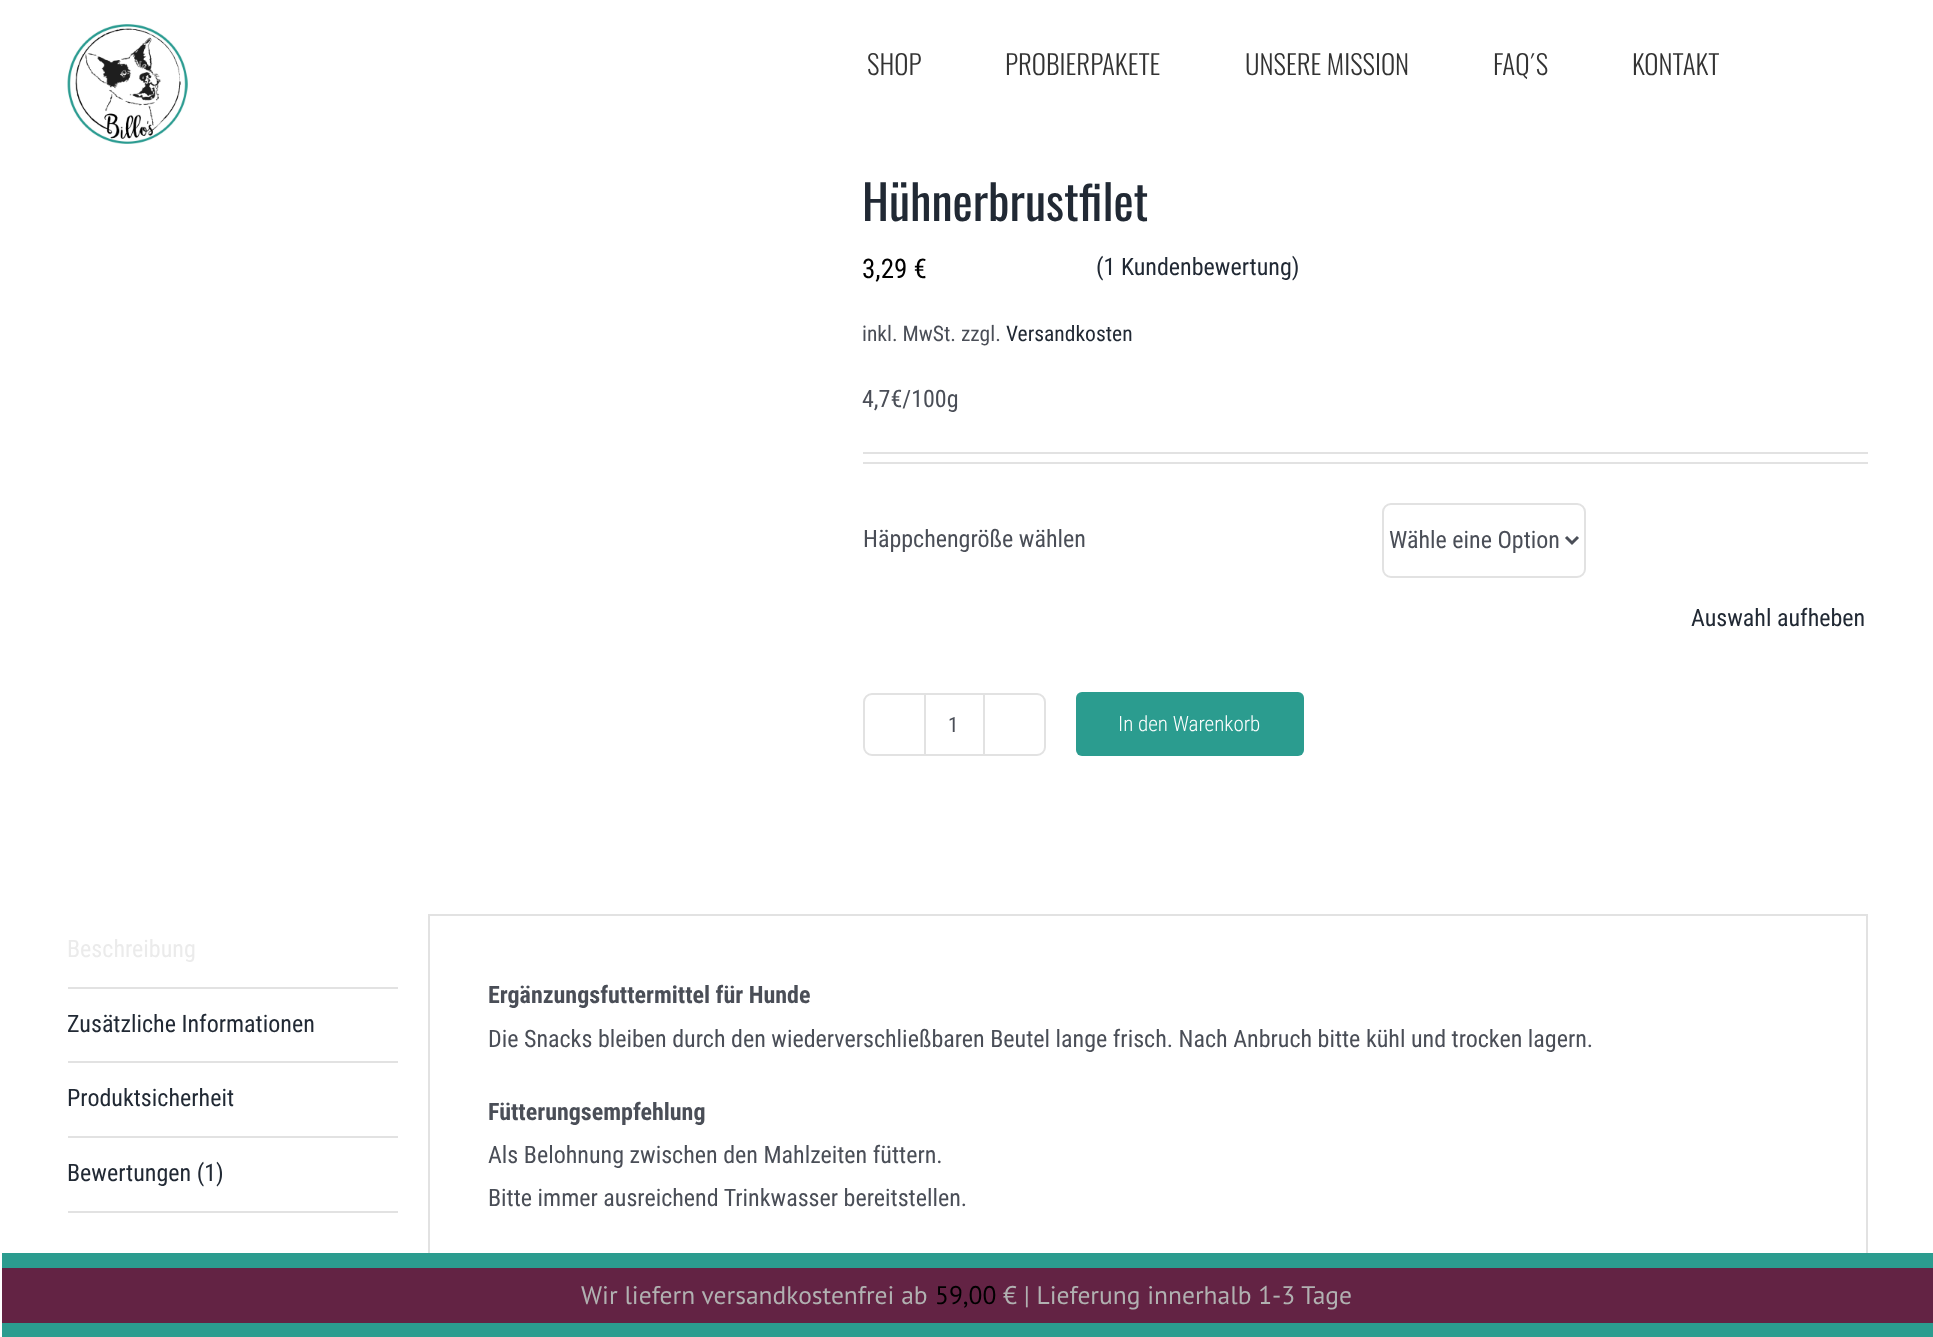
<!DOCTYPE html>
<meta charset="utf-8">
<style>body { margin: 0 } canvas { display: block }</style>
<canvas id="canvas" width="1933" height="1337"></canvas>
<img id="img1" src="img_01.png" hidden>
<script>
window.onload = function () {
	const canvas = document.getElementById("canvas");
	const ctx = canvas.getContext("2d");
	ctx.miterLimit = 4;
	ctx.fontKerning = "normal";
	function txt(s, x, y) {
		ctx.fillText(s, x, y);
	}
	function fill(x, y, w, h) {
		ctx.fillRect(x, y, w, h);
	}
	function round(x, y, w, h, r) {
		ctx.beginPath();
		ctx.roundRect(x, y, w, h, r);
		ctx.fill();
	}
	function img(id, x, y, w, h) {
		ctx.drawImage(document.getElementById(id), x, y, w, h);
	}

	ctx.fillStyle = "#FFFFFF";
	fill(0, 0, 1933, 1337);
	img("img1", 67, 24, 121, 120);
	ctx.fillStyle = "#E2E2E2";
	fill(863, 452, 1005, 2);
	fill(863, 462, 1005, 2);
	ctx.beginPath();
	ctx.roundRect(1383, 504, 202, 73, 8);
	ctx.strokeStyle = "#E2E2E2";
	ctx.lineWidth = 2;
	ctx.stroke();
	ctx.beginPath();
	ctx.moveTo(1566, 537);
	ctx.lineTo(1572, 543);
	ctx.lineTo(1578, 537);
	ctx.strokeStyle = "#4A4E57";
	ctx.lineWidth = 3;
	ctx.stroke();
	ctx.beginPath();
	ctx.roundRect(864, 694, 181, 61, 8);
	ctx.strokeStyle = "#E2E2E2";
	ctx.lineWidth = 2;
	ctx.stroke();
	fill(983, 695, 2, 60);
	fill(924, 695, 2, 60);
	ctx.fillStyle = "#2B9C8F";
	round(1076, 692, 228, 64, 6);
	ctx.fillStyle = "#E2E2E2";
	fill(68, 987, 330, 2);
	fill(68, 1061, 330, 2);
	fill(68, 1136, 330, 2);
	fill(68, 1211, 330, 2);
	ctx.strokeRect(429, 915, 1438, 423);
	ctx.fillStyle = "#2B9C8F";
	fill(2, 1253, 1931, 84);
	ctx.fillStyle = "#632344";
	fill(2, 1268, 1931, 55);
	ctx.font = "300 27px Oswald";
	ctx.fillStyle = "#333333";
	txt("SHOP", 867, 75);
	txt("PROBIERPAKETE", 1005, 75);
	txt("UNSERE MISSION", 1245, 75);
	txt("FAQ´S", 1493, 75);
	txt("KONTAKT", 1632, 75);
	ctx.font = "48px Oswald";
	ctx.fillStyle = "#212934";
	txt("Hühnerbrustfilet", 862, 221);
	ctx.font = "27px Roboto Condensed";
	ctx.fillStyle = "#000000";
	txt("3,29 €", 862, 278);
	ctx.font = "24px Roboto Condensed";
	ctx.fillStyle = "#212934";
	txt("(1 Kundenbewertung)", 1096, 275);
	ctx.font = "21.5px Roboto Condensed";
	ctx.fillStyle = "#4A4E57";
	txt("inkl. MwSt. zzgl.", 862, 341);
	ctx.fillStyle = "#212934";
	txt("Versandkosten", 1006, 341);
	ctx.font = "24px Roboto Condensed";
	ctx.fillStyle = "#4A4E57";
	txt("4,7€/100g", 862, 407);
	txt("Häppchengröße wählen", 863, 547);
	txt("Wähle eine Option", 1389, 548);
	ctx.fillStyle = "#212934";
	txt("Auswahl aufheben", 1691, 626);
	ctx.font = "21px Roboto Condensed";
	ctx.fillStyle = "#4A4E57";
	txt("1", 948, 732);
	ctx.font = "300 21px Roboto Condensed";
	ctx.fillStyle = "#FFFFFF";
	txt("In den Warenkorb", 1118, 731);
	ctx.font = "24px Roboto Condensed";
	ctx.fillStyle = "#EBEBEB";
	txt("Beschreibung", 67, 957);
	ctx.save();
	ctx.beginPath();
	ctx.rect(68, 824, 1800, 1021);
	ctx.clip();
	ctx.fillStyle = "#212934";
	txt("Zusätzliche Informationen", 67, 1032);
	ctx.restore();
	ctx.fillStyle = "#212934";
	txt("Produktsicherheit", 67, 1106);
	txt("Bewertungen (1)", 67, 1181);
	ctx.font = "bold 24px Roboto Condensed";
	ctx.fillStyle = "#4A4E57";
	txt("Ergänzungsfuttermittel für Hunde", 488, 1003);
	ctx.font = "24px Roboto Condensed";
	txt("Die Snacks bleiben durch den wiederverschließbaren Beutel lange frisch. Nach Anbruch bitte kühl und trocken lagern.", 488, 1047);
	ctx.font = "bold 24px Roboto Condensed";
	txt("Fütterungsempfehlung", 488, 1120);
	ctx.font = "24px Roboto Condensed";
	txt("Als Belohnung zwischen den Mahlzeiten füttern.", 488, 1163);
	txt("Bitte immer ausreichend Trinkwasser bereitstellen.", 488, 1206);
	ctx.font = "25.5px PT Sans";
	ctx.fillStyle = "#B1B1B1";
	txt("Wir liefern versandkostenfrei ab", 581, 1304);
	ctx.fillStyle = "#000000";
	txt("59,00", 935, 1304);
	ctx.fillStyle = "#B1B1B1";
	txt("€ | Lieferung innerhalb 1-3 Tage", 1003, 1304);
};
</script>
